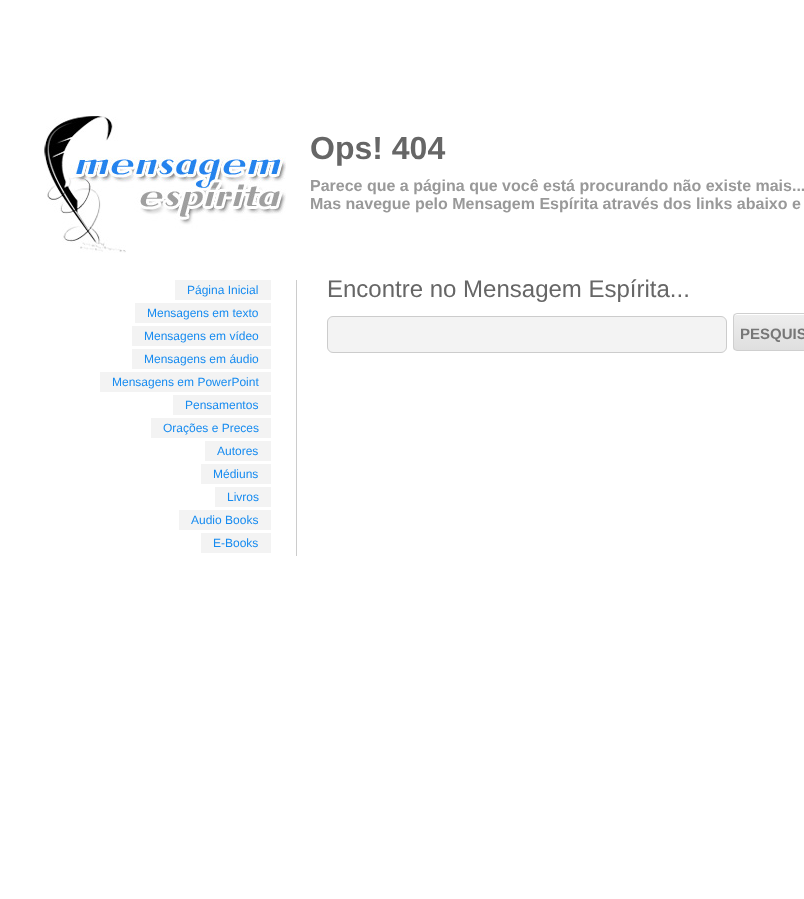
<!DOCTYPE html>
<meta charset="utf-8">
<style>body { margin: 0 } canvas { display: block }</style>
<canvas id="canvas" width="804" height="899"></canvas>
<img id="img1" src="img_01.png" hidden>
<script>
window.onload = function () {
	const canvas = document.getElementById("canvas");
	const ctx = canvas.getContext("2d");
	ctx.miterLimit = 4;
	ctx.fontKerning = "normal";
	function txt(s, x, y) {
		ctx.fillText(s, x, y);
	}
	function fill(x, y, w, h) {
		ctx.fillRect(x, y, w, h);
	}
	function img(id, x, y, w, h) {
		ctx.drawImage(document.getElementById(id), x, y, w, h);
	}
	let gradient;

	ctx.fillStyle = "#FFFFFF";
	fill(0, 0, 804, 899);
	img("img1", 44, 116, 242, 137);
	ctx.fillStyle = "#CCCCCC";
	fill(296, 280, 1, 276);
	ctx.fillStyle = "#F3F3F3";
	fill(175, 280, 96, 20);
	fill(135, 303, 136, 20);
	fill(132, 326, 139, 20);
	fill(132, 349, 139, 20);
	fill(100, 372, 171, 20);
	fill(173, 395, 98, 20);
	fill(151, 418, 120, 20);
	fill(205, 441, 66, 20);
	fill(201, 464, 70, 20);
	fill(215, 487, 56, 20);
	fill(179, 510, 92, 20);
	fill(201, 533, 70, 20);
	ctx.beginPath();
	ctx.roundRect(327.5, 316.5, 399, 36, 5.5);
	ctx.fill();
	ctx.strokeStyle = "#CCCCCC";
	ctx.stroke();
	ctx.save();
	ctx.beginPath();
	ctx.roundRect(733, 313, 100, 38, 4);
	ctx.clip();
	gradient = ctx.createLinearGradient(734, 314, 734, 350);
	gradient.addColorStop(0.05, "#EDEDED");
	gradient.addColorStop(1, "#DFDFDF");
	ctx.fillStyle = gradient;
	fill(733, 314, 71, 36);
	ctx.restore();
	ctx.fillStyle = "#FFFFFF";
	ctx.beginPath();
	ctx.moveTo(737, 315);
	ctx.lineTo(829, 315);
	ctx.bezierCurveTo(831, 315, 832, 316, 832, 318);
	ctx.bezierCurveTo(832, 310, 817, 314, 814, 314);
	ctx.lineTo(752, 314);
	ctx.bezierCurveTo(749, 314, 734, 310, 734, 318);
	ctx.bezierCurveTo(734, 316, 735, 315, 737, 315);
	ctx.closePath();
	ctx.fill();
	ctx.beginPath();
	ctx.roundRect(733.5, 313.5, 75, 37, 3.5);
	ctx.strokeStyle = "#CFCFCF";
	ctx.stroke();
	ctx.font = "bold 32px Liberation Sans";
	ctx.fillStyle = "#666666";
	txt("Ops! 404", 310, 159);
	ctx.font = "bold 16px Liberation Sans";
	ctx.fillStyle = "#999999";
	txt("Parece que a página que você está procurando não existe mais...", 310, 191);
	txt("Mas navegue pelo Mensagem Espírita através dos links abaixo e", 310, 209);
	ctx.font = "12px Liberation Sans";
	ctx.fillStyle = "#168BF0";
	txt("Página Inicial", 187, 294);
	txt("Mensagens em texto", 147, 317);
	txt("Mensagens em vídeo", 144, 340);
	txt("Mensagens em áudio", 144, 363);
	txt("Mensagens em PowerPoint", 112, 386);
	txt("Pensamentos", 185, 409);
	txt("Orações e Preces", 163, 432);
	txt("Autores", 217, 455);
	txt("Médiuns", 213, 478);
	txt("Livros", 227, 501);
	txt("Audio Books", 191, 524);
	txt("E-Books", 213, 547);
	ctx.font = "24px Liberation Sans";
	ctx.fillStyle = "#666666";
	txt("Encontre no Mensagem Espírita...", 327, 297);
	ctx.font = "bold 15px Liberation Sans";
	ctx.fillStyle = "#777777";
	txt("PESQUIS", 740, 339);
};
</script>
